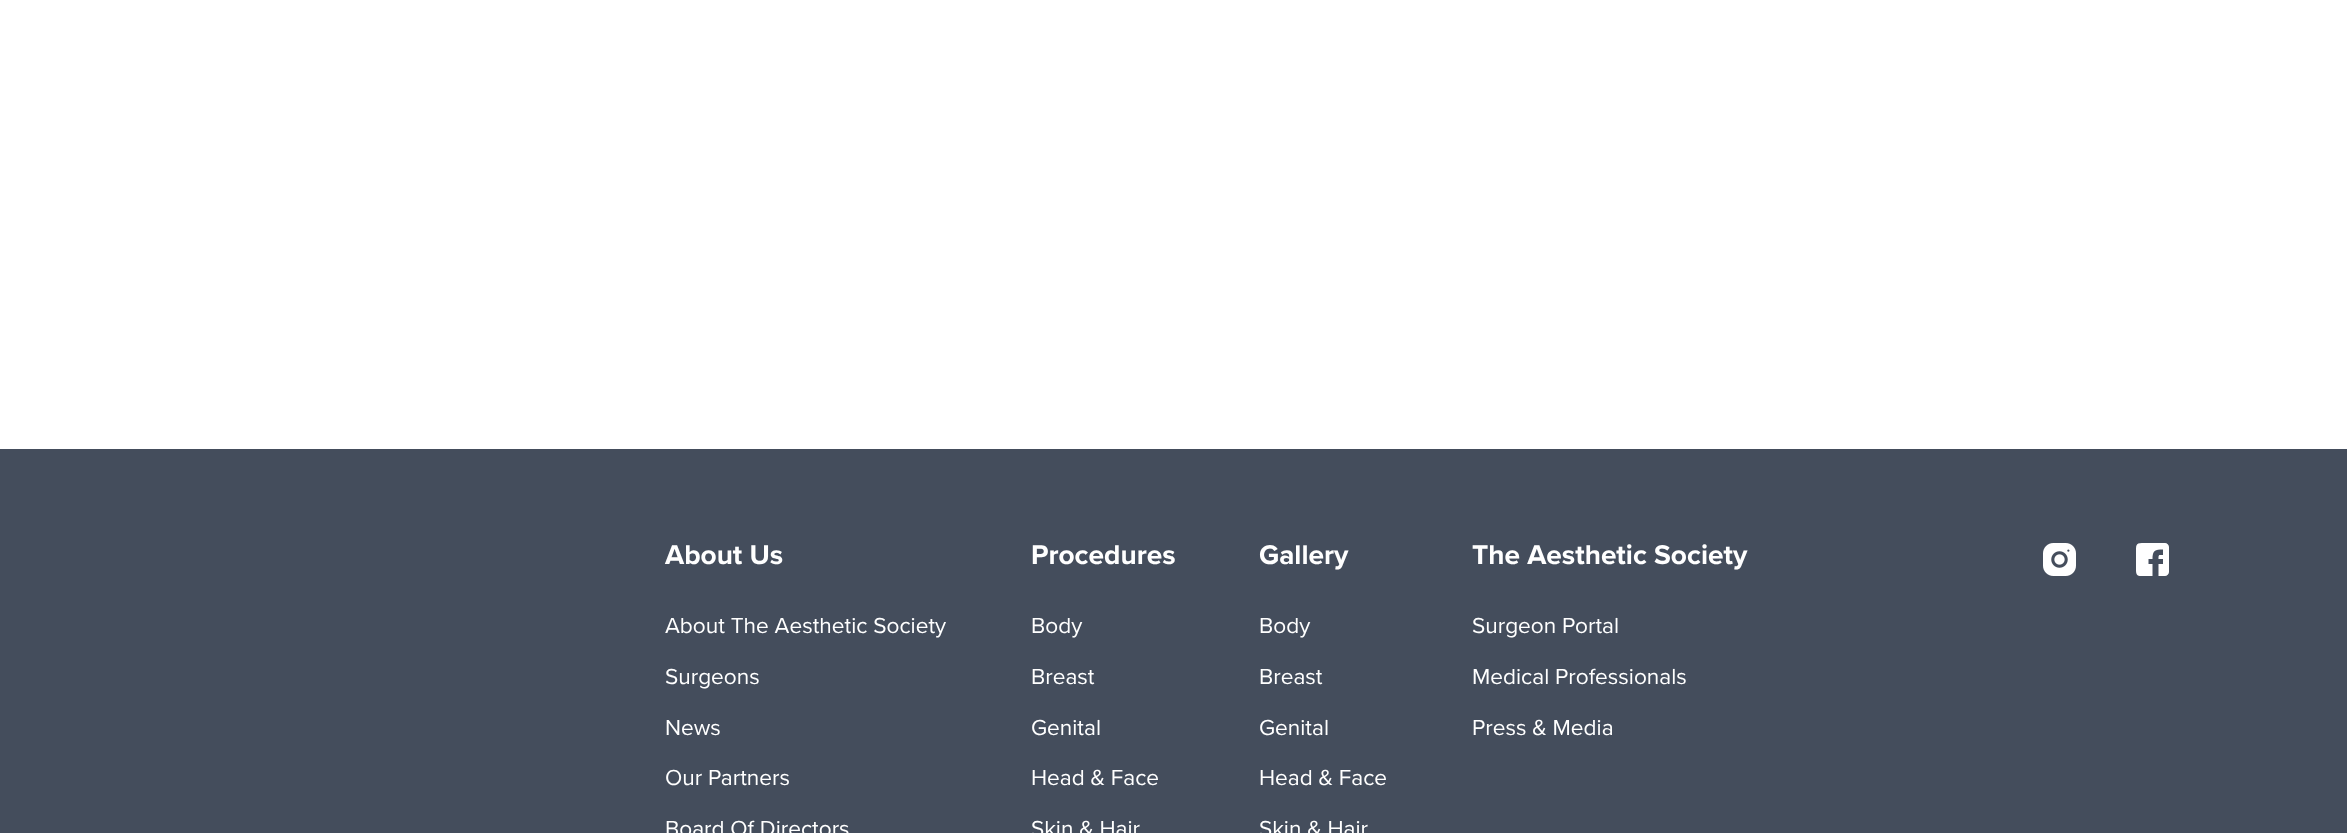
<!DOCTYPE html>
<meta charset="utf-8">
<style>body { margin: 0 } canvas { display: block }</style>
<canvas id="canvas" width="2347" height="833"></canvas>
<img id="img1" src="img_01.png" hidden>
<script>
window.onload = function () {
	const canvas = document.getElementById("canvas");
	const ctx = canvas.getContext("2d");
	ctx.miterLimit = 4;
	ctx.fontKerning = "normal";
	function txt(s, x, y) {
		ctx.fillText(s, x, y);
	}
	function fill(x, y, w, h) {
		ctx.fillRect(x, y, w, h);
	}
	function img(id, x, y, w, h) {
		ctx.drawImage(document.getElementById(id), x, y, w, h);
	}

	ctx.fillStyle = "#FFFFFF";
	fill(0, 0, 2347, 833);
	ctx.fillStyle = "#444D5C";
	fill(0, 449, 2347, 384);
	img("img1", 2043, 543, 33, 33);
	ctx.save();
	ctx.beginPath();
	ctx.rect(2136, 543, 33, 33);
	ctx.clip();
	ctx.fillStyle = "#FFFFFF";
	ctx.beginPath();
	ctx.moveTo(2165, 543);
	ctx.lineTo(2144.5, 543);
	ctx.bezierCurveTo(2136.5, 543, 2136, 543.5, 2136, 551);
	ctx.lineTo(2136, 559.5);
	ctx.bezierCurveTo(2136, 579, 2134, 576, 2152.5, 576);
	ctx.lineTo(2152.5, 564);
	ctx.lineTo(2148.5, 564);
	ctx.lineTo(2148.5, 559);
	ctx.lineTo(2152.5, 559);
	ctx.bezierCurveTo(2152.5, 550.5, 2155, 549.5, 2163, 549.5);
	ctx.lineTo(2163, 555);
	ctx.bezierCurveTo(2158.5, 555, 2158.5, 554.5, 2158.5, 559);
	ctx.lineTo(2163, 559);
	ctx.lineTo(2163, 564);
	ctx.lineTo(2158.5, 564);
	ctx.lineTo(2158.5, 576);
	ctx.lineTo(2165, 576);
	ctx.bezierCurveTo(2167, 576, 2169, 574, 2169, 572);
	ctx.lineTo(2169, 547);
	ctx.bezierCurveTo(2169, 545, 2167, 543, 2165, 543);
	ctx.closePath();
	ctx.fill();
	ctx.restore();
	ctx.font = "bold 28px Proxima Nova";
	ctx.fillStyle = "#FFFFFF";
	txt("About Us", 665, 564);
	ctx.font = "22.6px Proxima Nova";
	txt("About The Aesthetic Society", 665, 633);
	txt("Surgeons", 665, 684);
	txt("News", 665, 735);
	txt("Our Partners", 665, 785);
	txt("Board Of Directors", 665, 836);
	ctx.font = "bold 28px Proxima Nova";
	txt("Procedures", 1031, 564);
	ctx.font = "22.6px Proxima Nova";
	txt("Body", 1031, 633);
	txt("Breast", 1031, 684);
	txt("Genital", 1031, 735);
	txt("Head & Face", 1031, 785);
	txt("Skin & Hair", 1031, 836);
	ctx.font = "bold 28px Proxima Nova";
	txt("Gallery", 1259, 564);
	ctx.font = "22.6px Proxima Nova";
	txt("Body", 1259, 633);
	txt("Breast", 1259, 684);
	txt("Genital", 1259, 735);
	txt("Head & Face", 1259, 785);
	txt("Skin & Hair", 1259, 836);
	ctx.font = "bold 28px Proxima Nova";
	txt("The Aesthetic Society", 1472, 564);
	ctx.font = "22.6px Proxima Nova";
	txt("Surgeon Portal", 1472, 633);
	txt("Medical Professionals", 1472, 684);
	txt("Press & Media", 1472, 735);
};
</script>
